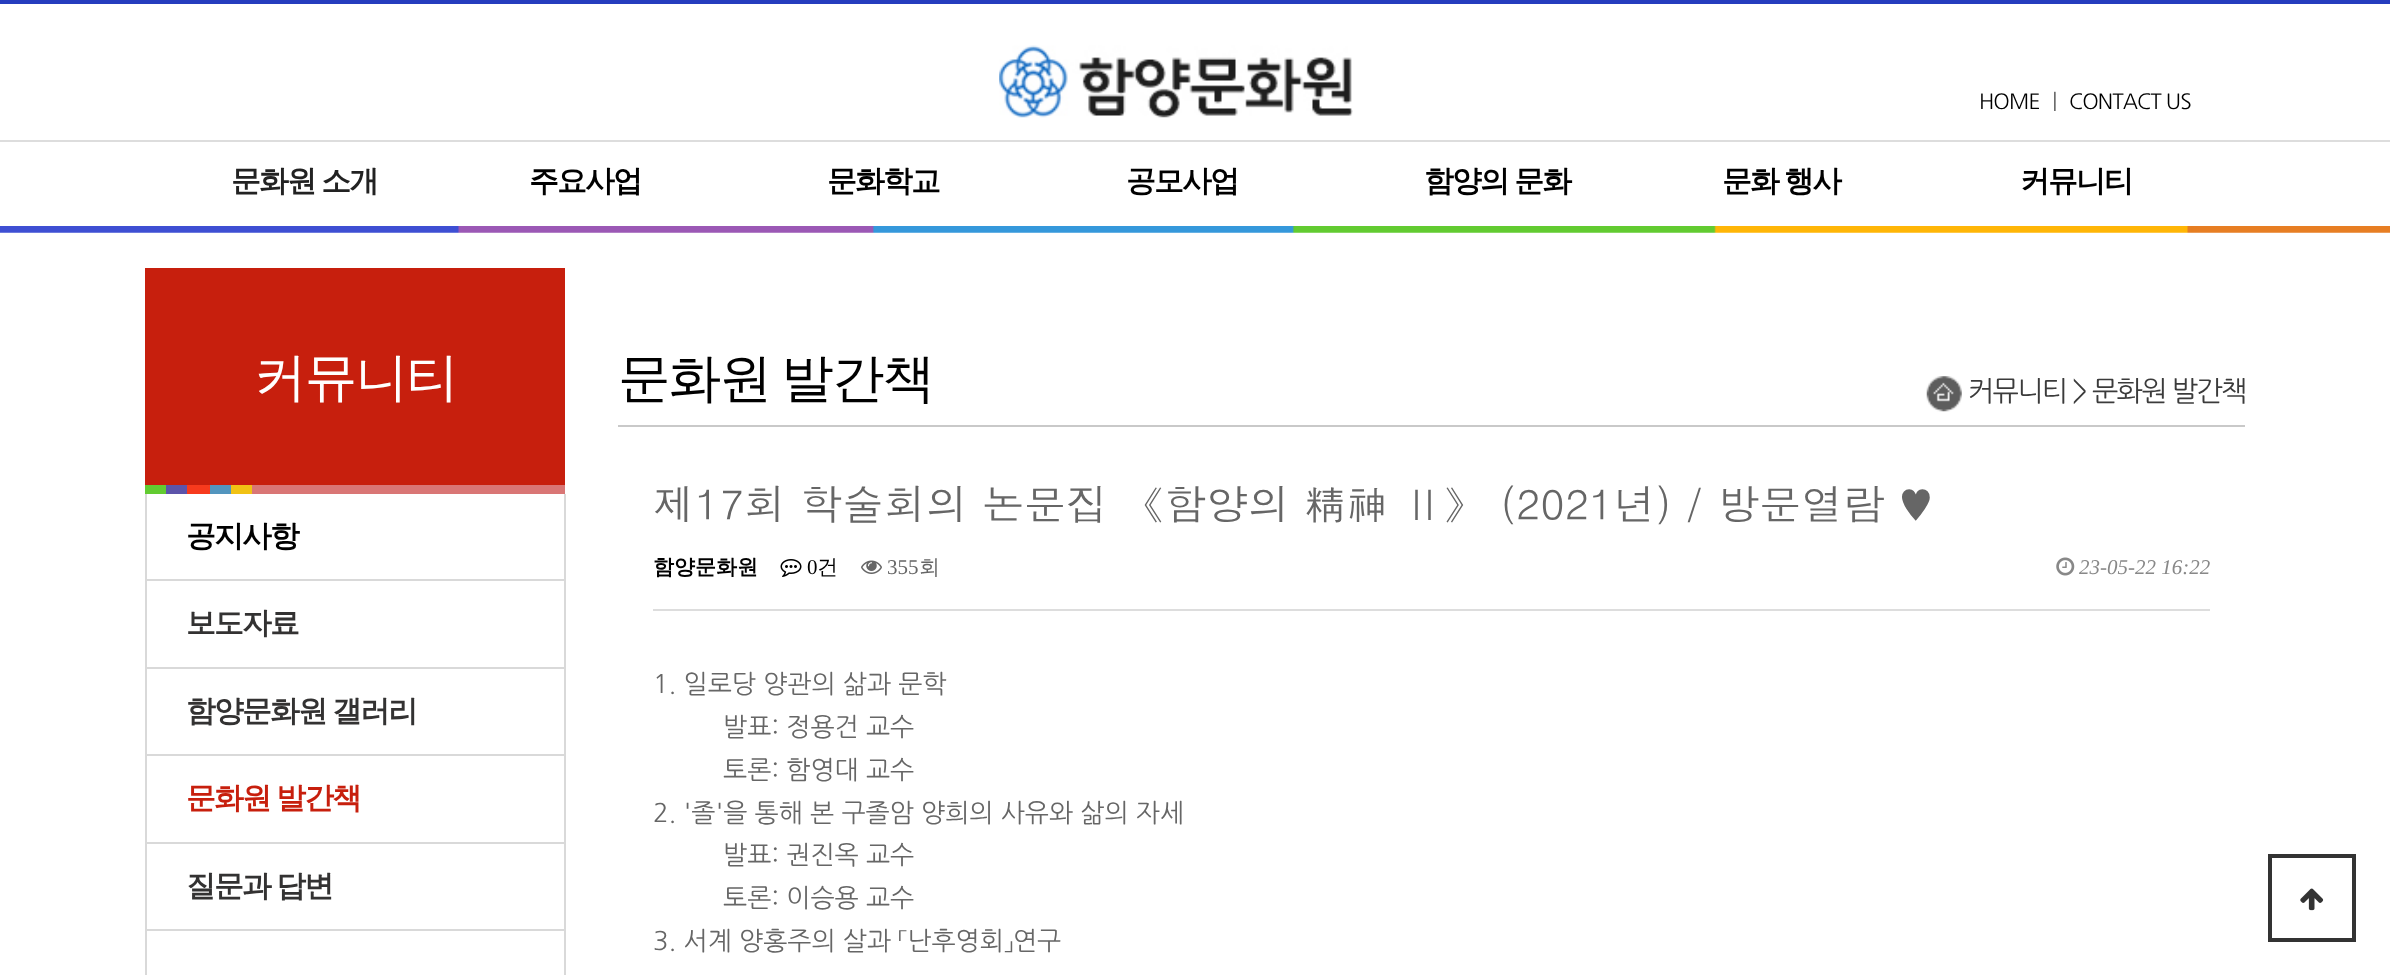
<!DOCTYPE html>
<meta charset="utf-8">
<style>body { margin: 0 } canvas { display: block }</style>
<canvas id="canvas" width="2390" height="975"></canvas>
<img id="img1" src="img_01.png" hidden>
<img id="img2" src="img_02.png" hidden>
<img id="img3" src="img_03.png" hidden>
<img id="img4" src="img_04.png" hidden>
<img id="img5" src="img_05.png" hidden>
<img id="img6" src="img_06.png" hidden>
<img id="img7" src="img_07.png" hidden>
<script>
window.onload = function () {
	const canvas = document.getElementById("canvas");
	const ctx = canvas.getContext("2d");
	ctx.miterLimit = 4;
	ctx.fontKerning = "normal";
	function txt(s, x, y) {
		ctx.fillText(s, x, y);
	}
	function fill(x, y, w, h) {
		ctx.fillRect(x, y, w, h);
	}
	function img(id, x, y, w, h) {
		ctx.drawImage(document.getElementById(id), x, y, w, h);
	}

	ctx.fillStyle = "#FFFFFF";
	fill(0, 0, 2390, 975);
	ctx.fillStyle = "#253DBE";
	fill(0, 0, 2390, 4);
	img("img1", 999, 45, 354, 73);
	ctx.fillStyle = "#DDDDDD";
	fill(0, 140, 2390, 2);
	img("img2", 0, 226, 2390, 7);
	ctx.fillStyle = "#C71F0D";
	fill(145, 268, 420, 217);
	ctx.fillStyle = "#62CB31";
	fill(145, 485, 21, 9);
	ctx.fillStyle = "#5C54AA";
	fill(166, 485, 21, 9);
	ctx.fillStyle = "#F73A1D";
	fill(187, 485, 23, 9);
	ctx.fillStyle = "#5295BE";
	fill(210, 485, 21, 9);
	ctx.fillStyle = "#F1C214";
	fill(231, 485, 21, 9);
	ctx.fillStyle = "#D97675";
	fill(252, 485, 313, 9);
	ctx.fillStyle = "#D9D9D9";
	fill(564, 494, 2, 481);
	fill(145, 579, 420, 2);
	fill(145, 494, 2, 87);
	fill(145, 667, 420, 2);
	fill(145, 581, 2, 88);
	fill(145, 754, 420, 2);
	fill(145, 669, 2, 87);
	fill(145, 842, 420, 2);
	fill(145, 756, 2, 88);
	fill(145, 929, 420, 2);
	fill(145, 844, 2, 131);
	img("img3", 1926, 376, 36, 36);
	ctx.fillStyle = "#C9C9C9";
	fill(618, 425, 1627, 2);
	ctx.fillStyle = "#DDDDDD";
	fill(653, 609, 1557, 2);
	img("img4", 780, 559, 22, 18);
	img("img5", 861, 560, 21, 14);
	img("img6", 2056, 557, 19, 19);
	ctx.strokeStyle = "#333333";
	ctx.lineWidth = 4;
	ctx.strokeRect(2270, 856, 84, 84);
	img("img7", 2300, 888, 24, 23);
	ctx.letterSpacing = "-0.9px";
	ctx.font = "21px NanumGothic";
	ctx.fillStyle = "#000000";
	txt("HOME", 1979, 109);
	ctx.fillStyle = "#555555";
	txt("ㅣ", 2045, 109);
	ctx.fillStyle = "#000000";
	txt("CONTACT US", 2069, 109);
	ctx.letterSpacing = "-1.75px";
	ctx.wordSpacing = "-1px";
	ctx.font = "bold 29.75px WenQuanYi Zen Hei";
	ctx.fillStyle = "#222222";
	txt("문화원 소개", 231, 191);
	ctx.wordSpacing = "0px";
	ctx.fillStyle = "#000000";
	txt("주요사업", 529, 191);
	txt("문화학교", 827, 191);
	txt("공모사업", 1126, 191);
	ctx.wordSpacing = "-1px";
	txt("함양의 문화", 1424, 191);
	txt("문화 행사", 1722, 191);
	ctx.wordSpacing = "0px";
	txt("커뮤니티", 2020, 191);
	ctx.font = "500 52.5px WenQuanYi Zen Hei";
	ctx.fillStyle = "#FFFFFF";
	txt("커뮤니티", 254, 395);
	ctx.font = "bold 29.75px WenQuanYi Zen Hei";
	ctx.fillStyle = "#000000";
	txt("공지사항", 186, 546);
	ctx.fillStyle = "#333232";
	txt("보도자료", 186, 633);
	ctx.wordSpacing = "-1px";
	txt("함양문화원 갤러리", 186, 721);
	ctx.fillStyle = "#C71F0D";
	txt("문화원 발간책", 186, 808);
	ctx.fillStyle = "#333232";
	txt("질문과 답변", 186, 896);
	ctx.wordSpacing = "-3px";
	ctx.font = "500 52.5px WenQuanYi Zen Hei";
	ctx.fillStyle = "#000000";
	txt("문화원 발간책", 618, 396);
	ctx.wordSpacing = "0px";
	ctx.font = "28px NanumGothic";
	ctx.fillStyle = "#3B3B3B";
	txt("커뮤니티 > 문화원 발간책", 1968, 401);
	ctx.letterSpacing = "0px";
	ctx.font = "42px Dotum";
	ctx.fillStyle = "#666666";
	txt("제17회 학술회의 논문집 《함양의 精神 Ⅱ》 (2021년) / 방문열람 ♥", 653, 520);
	ctx.font = "bold 21px WenQuanYi Zen Hei";
	ctx.fillStyle = "#000000";
	txt("함양문화원", 653, 574);
	ctx.font = "21px Liberation Serif";
	txt("0", 807, 574);
	ctx.font = "500 21px WenQuanYi Zen Hei";
	txt("건", 817, 574);
	ctx.font = "21px Liberation Serif";
	ctx.fillStyle = "#666666";
	txt("355", 887, 574);
	ctx.font = "500 21px WenQuanYi Zen Hei";
	txt("회", 919, 574);
	ctx.font = "italic 21px Liberation Serif";
	ctx.fillStyle = "#888888";
	txt("23-05-22 16:22", 2079, 574);
	ctx.font = "25.7px NanumGothic";
	ctx.fillStyle = "#666666";
	txt("1. 일로당 양관의 삶과 문학", 653, 693);
	txt("발표: 정용건 교수", 723, 736);
	txt("토론: 함영대 교수", 723, 779);
	txt("2. '졸'을 통해 본 구졸암 양희의 사유와 삶의 자세", 653, 822);
	txt("발표: 권진옥 교수", 723, 864);
	txt("토론: 이승용 교수", 723, 907);
	txt("3. 서계 양홍주의 살과 「난후영회」연구", 653, 950);
};
</script>
